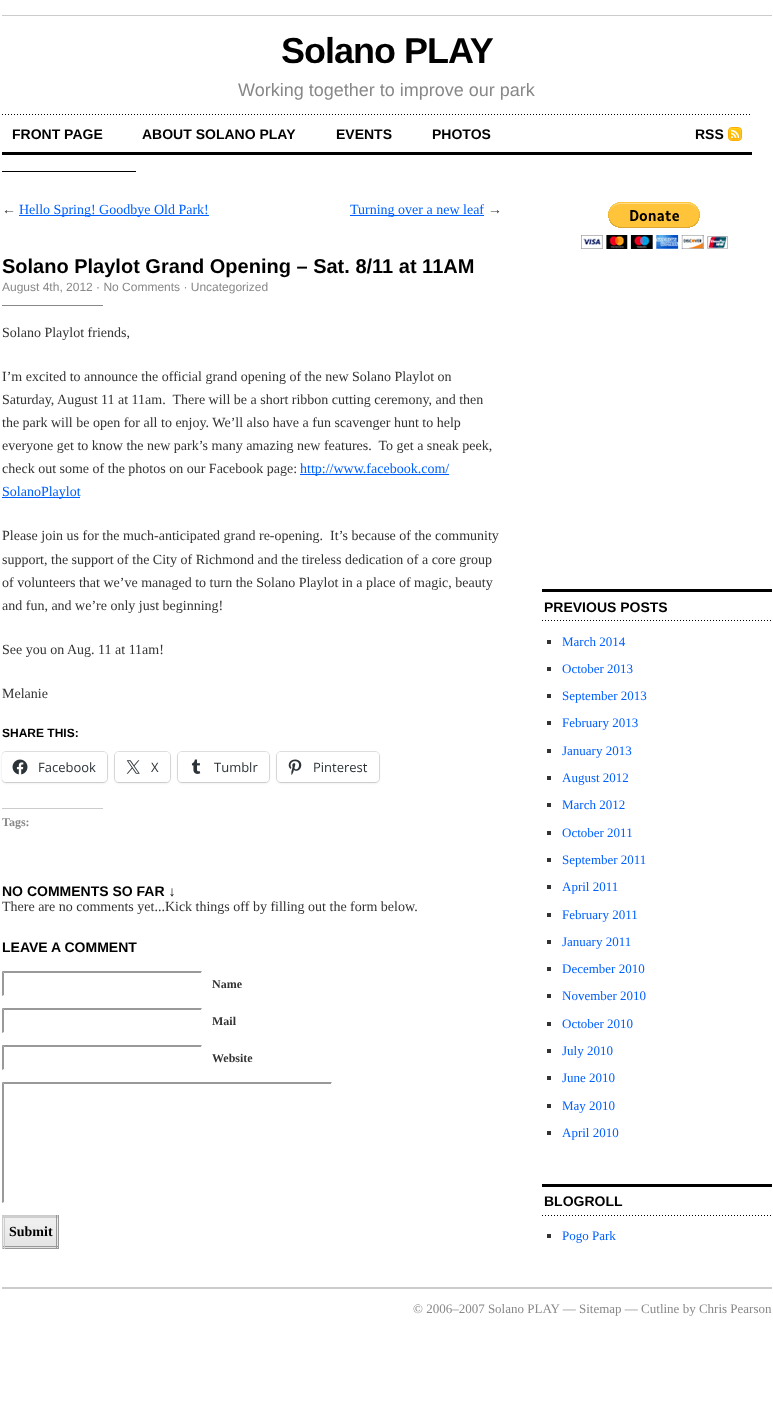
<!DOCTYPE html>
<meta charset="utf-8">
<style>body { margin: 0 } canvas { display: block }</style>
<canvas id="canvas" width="773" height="1401"></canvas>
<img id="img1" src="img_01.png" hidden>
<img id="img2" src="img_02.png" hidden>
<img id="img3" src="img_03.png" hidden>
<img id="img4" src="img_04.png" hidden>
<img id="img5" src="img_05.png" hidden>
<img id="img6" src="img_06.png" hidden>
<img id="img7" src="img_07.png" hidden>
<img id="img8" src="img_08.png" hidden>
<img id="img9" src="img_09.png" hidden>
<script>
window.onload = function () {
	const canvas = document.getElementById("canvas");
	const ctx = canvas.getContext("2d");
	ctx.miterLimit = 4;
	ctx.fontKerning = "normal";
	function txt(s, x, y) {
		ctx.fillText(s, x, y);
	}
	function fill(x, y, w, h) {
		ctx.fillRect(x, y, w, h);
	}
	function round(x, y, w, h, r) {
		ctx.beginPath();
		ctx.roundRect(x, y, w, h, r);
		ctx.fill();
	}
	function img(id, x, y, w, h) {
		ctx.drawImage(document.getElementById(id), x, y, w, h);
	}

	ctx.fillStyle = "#FFFFFF";
	fill(0, 0, 773, 1401);
	ctx.fillStyle = "#CCCCCC";
	fill(2, 15, 770, 1);
	img("img1", 2, 114, 748, 1);
	ctx.fillStyle = "#000000";
	fill(2, 152, 750, 3);
	img("img2", 728, 127, 14, 14);
	fill(2, 171, 134, 1);
	ctx.fillStyle = "#0060FF";
	fill(19, 215, 190, 1);
	fill(350, 215, 134, 1);
	ctx.fillStyle = "#888888";
	fill(2, 305, 101, 1);
	ctx.fillStyle = "#0060FF";
	fill(300, 474, 149, 1);
	fill(2, 497, 78, 1);
	ctx.save();
	ctx.beginPath();
	ctx.rect(2, 321, 500, 487);
	ctx.clip();
	ctx.beginPath();
	ctx.roundRect(1.5, 751.5, 106, 31, 4.5);
	ctx.strokeStyle = "#E0E0E0";
	ctx.stroke();
	ctx.restore();
	ctx.fillStyle = "rgba(0, 0, 0, 0.12)";
	ctx.filter = "blur(1px)";
	ctx.beginPath();
	ctx.roundRect(2, 753, 105, 30, 4);
	ctx.fill();
	ctx.filter = "none";
	ctx.fillStyle = "#FFFFFF";
	round(2, 752, 105, 30, 4);
	img("img3", 12, 759, 16, 16);
	ctx.beginPath();
	ctx.roundRect(114.5, 751.5, 56, 31, 4.5);
	ctx.strokeStyle = "#E0E0E0";
	ctx.stroke();
	ctx.fillStyle = "rgba(0, 0, 0, 0.12)";
	ctx.filter = "blur(1px)";
	ctx.beginPath();
	ctx.roundRect(115, 753, 55, 30, 4);
	ctx.fill();
	ctx.filter = "none";
	ctx.fillStyle = "#FFFFFF";
	round(115, 752, 55, 30, 4);
	img("img4", 126, 760, 14, 14);
	ctx.beginPath();
	ctx.roundRect(177.5, 751.5, 92, 31, 4.5);
	ctx.stroke();
	ctx.fillStyle = "rgba(0, 0, 0, 0.12)";
	ctx.filter = "blur(1px)";
	ctx.beginPath();
	ctx.roundRect(178, 753, 91, 30, 4);
	ctx.fill();
	ctx.filter = "none";
	ctx.fillStyle = "#FFFFFF";
	round(178, 752, 91, 30, 4);
	img("img5", 191, 759, 10, 15);
	ctx.beginPath();
	ctx.roundRect(276.5, 751.5, 103, 31, 4.5);
	ctx.stroke();
	ctx.fillStyle = "rgba(0, 0, 0, 0.12)";
	ctx.filter = "blur(1px)";
	ctx.beginPath();
	ctx.roundRect(277, 753, 102, 30, 4);
	ctx.fill();
	ctx.filter = "none";
	ctx.fillStyle = "#FFFFFF";
	round(277, 752, 102, 30, 4);
	img("img6", 288, 759, 14, 16);
	ctx.fillStyle = "#CCCCCC";
	fill(2, 808, 101, 1);
	ctx.fillStyle = "#999999";
	ctx.beginPath();
	ctx.moveTo(2, 971);
	ctx.lineTo(202, 971);
	ctx.lineTo(201, 973);
	ctx.lineTo(4, 973);
	ctx.closePath();
	ctx.fill();
	ctx.fillStyle = "#FFFFFF";
	ctx.beginPath();
	ctx.moveTo(202, 971);
	ctx.lineTo(202, 996);
	ctx.lineTo(201, 995);
	ctx.lineTo(201, 973);
	ctx.closePath();
	ctx.fill();
	ctx.fillStyle = "#999999";
	ctx.beginPath();
	ctx.moveTo(2, 996);
	ctx.lineTo(2, 971);
	ctx.lineTo(4, 973);
	ctx.lineTo(4, 995);
	ctx.closePath();
	ctx.fill();
	ctx.beginPath();
	ctx.moveTo(2, 1008);
	ctx.lineTo(202, 1008);
	ctx.lineTo(201, 1010);
	ctx.lineTo(4, 1010);
	ctx.closePath();
	ctx.fill();
	ctx.fillStyle = "#FFFFFF";
	ctx.beginPath();
	ctx.moveTo(202, 1008);
	ctx.lineTo(202, 1033);
	ctx.lineTo(201, 1032);
	ctx.lineTo(201, 1010);
	ctx.closePath();
	ctx.fill();
	ctx.fillStyle = "#999999";
	ctx.beginPath();
	ctx.moveTo(2, 1033);
	ctx.lineTo(2, 1008);
	ctx.lineTo(4, 1010);
	ctx.lineTo(4, 1032);
	ctx.closePath();
	ctx.fill();
	ctx.beginPath();
	ctx.moveTo(2, 1045);
	ctx.lineTo(202, 1045);
	ctx.lineTo(201, 1047);
	ctx.lineTo(4, 1047);
	ctx.closePath();
	ctx.fill();
	ctx.fillStyle = "#FFFFFF";
	ctx.beginPath();
	ctx.moveTo(202, 1045);
	ctx.lineTo(202, 1070);
	ctx.lineTo(201, 1069);
	ctx.lineTo(201, 1047);
	ctx.closePath();
	ctx.fill();
	ctx.fillStyle = "#999999";
	ctx.beginPath();
	ctx.moveTo(2, 1070);
	ctx.lineTo(2, 1045);
	ctx.lineTo(4, 1047);
	ctx.lineTo(4, 1069);
	ctx.closePath();
	ctx.fill();
	ctx.beginPath();
	ctx.moveTo(2, 1082);
	ctx.lineTo(332, 1082);
	ctx.lineTo(331, 1084);
	ctx.lineTo(4, 1084);
	ctx.closePath();
	ctx.fill();
	ctx.fillStyle = "#FFFFFF";
	ctx.beginPath();
	ctx.moveTo(332, 1082);
	ctx.lineTo(332, 1203);
	ctx.lineTo(331, 1202);
	ctx.lineTo(331, 1084);
	ctx.closePath();
	ctx.fill();
	ctx.fillStyle = "#999999";
	ctx.beginPath();
	ctx.moveTo(2, 1203);
	ctx.lineTo(2, 1082);
	ctx.lineTo(4, 1084);
	ctx.lineTo(4, 1202);
	ctx.closePath();
	ctx.fill();
	img("img7", 3, 1216, 55, 32);
	ctx.fillStyle = "#CCCCCC";
	fill(2, 1215, 57, 1);
	fill(2, 1217, 57, 1);
	ctx.fillStyle = "#999999";
	fill(56, 1215, 1, 34);
	fill(58, 1215, 1, 34);
	fill(2, 1246, 57, 1);
	fill(2, 1248, 57, 1);
	ctx.fillStyle = "#CCCCCC";
	fill(2, 1215, 1, 34);
	fill(4, 1215, 1, 34);
	img("img8", 581, 202, 147, 47);
	img("img9", 542, 620, 229, 1);
	ctx.fillStyle = "#000000";
	fill(542, 589, 230, 3);
	ctx.fillStyle = "#333333";
	fill(547, 640, 4, 4);
	fill(547, 667, 4, 4);
	fill(547, 694, 4, 4);
	fill(547, 721, 4, 4);
	fill(547, 749, 4, 4);
	fill(547, 776, 4, 4);
	fill(547, 803, 4, 4);
	fill(547, 831, 4, 4);
	fill(547, 858, 4, 4);
	fill(547, 885, 4, 4);
	fill(547, 913, 4, 4);
	fill(547, 940, 4, 4);
	fill(547, 967, 4, 4);
	fill(547, 994, 4, 4);
	fill(547, 1022, 4, 4);
	fill(547, 1049, 4, 4);
	fill(547, 1076, 4, 4);
	fill(547, 1104, 4, 4);
	fill(547, 1131, 4, 4);
	img("img9", 542, 1215, 229, 1);
	ctx.fillStyle = "#000000";
	fill(542, 1184, 230, 3);
	ctx.fillStyle = "#333333";
	fill(547, 1234, 4, 4);
	ctx.fillStyle = "#CCCCCC";
	fill(2, 1287, 770, 2);
	ctx.letterSpacing = "-1px";
	ctx.font = "bold 36px Liberation Sans";
	ctx.fillStyle = "#000000";
	txt("Solano PLAY", 281, 63);
	ctx.letterSpacing = "0px";
	ctx.font = "18px Liberation Sans";
	ctx.fillStyle = "#888888";
	txt("Working together to improve our park", 238, 96);
	ctx.font = "bold 14px Liberation Sans";
	ctx.fillStyle = "#000000";
	txt("FRONT PAGE", 12, 139);
	txt("ABOUT SOLANO PLAY", 142, 139);
	txt("EVENTS", 336, 139);
	txt("PHOTOS", 432, 139);
	txt("RSS", 695, 139);
	ctx.font = "14px Liberation Serif";
	ctx.fillStyle = "#333333";
	txt("←", 2, 214);
	ctx.fillStyle = "#0060FF";
	txt("Hello Spring! Goodbye Old Park!", 19, 214);
	txt("Turning over a new leaf", 350, 214);
	ctx.fillStyle = "#333333";
	txt("→", 488, 214);
	ctx.font = "bold 20px Liberation Sans";
	ctx.fillStyle = "#000000";
	txt("Solano Playlot Grand Opening – Sat. 8/11 at 11AM", 2, 273);
	ctx.font = "12px Liberation Sans";
	ctx.fillStyle = "#888888";
	txt("August 4th, 2012 · No Comments · Uncategorized", 2, 291);
	ctx.font = "14px Liberation Serif";
	ctx.fillStyle = "#333333";
	txt("Solano Playlot friends,", 2, 337);
	txt("I’m excited to announce the official grand opening of the new Solano Playlot on", 2, 381);
	txt("Saturday, August 11 at 11am.  There will be a short ribbon cutting ceremony, and then", 2, 404);
	txt("the park will be open for all to enjoy. We’ll also have a fun scavenger hunt to help", 2, 427);
	txt("everyone get to know the new park’s many amazing new features.  To get a sneak peek,", 2, 450);
	txt("check out some of the photos on our Facebook page:", 2, 473);
	ctx.fillStyle = "#0060FF";
	txt("http://www.facebook.com/", 300, 473);
	txt("SolanoPlaylot", 2, 496);
	ctx.fillStyle = "#333333";
	txt("Please join us for the much-anticipated grand re-opening.  It’s because of the community", 2, 540);
	txt("support, the support of the City of Richmond and the tireless dedication of a core group", 2, 564);
	txt("of volunteers that we’ve managed to turn the Solano Playlot in a place of magic, beauty", 2, 587);
	txt("and fun, and we’re only just beginning!", 2, 610);
	txt("See you on Aug. 11 at 11am!", 2, 654);
	txt("Melanie", 2, 698);
	ctx.font = "bold 12px Liberation Sans";
	ctx.fillStyle = "#000000";
	txt("SHARE THIS:", 2, 737);
	ctx.font = "13px Open Sans";
	ctx.fillStyle = "#2C3338";
	txt("Facebook", 38, 772);
	txt("X", 151, 772);
	txt("Tumblr", 214, 772);
	txt("Pinterest", 313, 772);
	ctx.font = "bold 12px Liberation Serif";
	ctx.fillStyle = "#888888";
	txt("Tags:", 2, 826);
	ctx.font = "bold 14px Liberation Sans";
	ctx.fillStyle = "#000000";
	txt("NO COMMENTS SO FAR ↓", 2, 896);
	ctx.font = "14px Liberation Serif";
	ctx.fillStyle = "#333333";
	txt("There are no comments yet...Kick things off by filling out the form below.", 2, 911);
	ctx.font = "bold 14px Liberation Sans";
	ctx.fillStyle = "#000000";
	txt("LEAVE A COMMENT", 2, 952);
	ctx.font = "bold 12px Liberation Serif";
	ctx.fillStyle = "#333333";
	txt("Name", 212, 988);
	txt("Mail", 212, 1025);
	txt("Website", 212, 1062);
	ctx.font = "bold 14px Liberation Serif";
	ctx.fillStyle = "#000000";
	txt("Submit", 9, 1236);
	ctx.font = "bold 14px Liberation Sans";
	txt("PREVIOUS POSTS", 544, 612);
	ctx.font = "13px Liberation Serif";
	ctx.fillStyle = "#0060FF";
	txt("March 2014", 562, 646);
	txt("October 2013", 562, 673);
	txt("September 2013", 562, 700);
	txt("February 2013", 562, 727);
	txt("January 2013", 562, 755);
	txt("August 2012", 562, 782);
	txt("March 2012", 562, 809);
	txt("October 2011", 562, 837);
	txt("September 2011", 562, 864);
	txt("April 2011", 562, 891);
	txt("February 2011", 562, 919);
	txt("January 2011", 562, 946);
	txt("December 2010", 562, 973);
	txt("November 2010", 562, 1000);
	txt("October 2010", 562, 1028);
	txt("July 2010", 562, 1055);
	txt("June 2010", 562, 1082);
	txt("May 2010", 562, 1110);
	txt("April 2010", 562, 1137);
	ctx.font = "bold 14px Liberation Sans";
	ctx.fillStyle = "#000000";
	txt("BLOGROLL", 544, 1206);
	ctx.font = "13px Liberation Serif";
	ctx.fillStyle = "#0060FF";
	txt("Pogo Park", 562, 1240);
	ctx.fillStyle = "#888888";
	txt("© 2006–2007 Solano PLAY — Sitemap — Cutline by Chris Pearson", 413, 1313);
};
</script>
